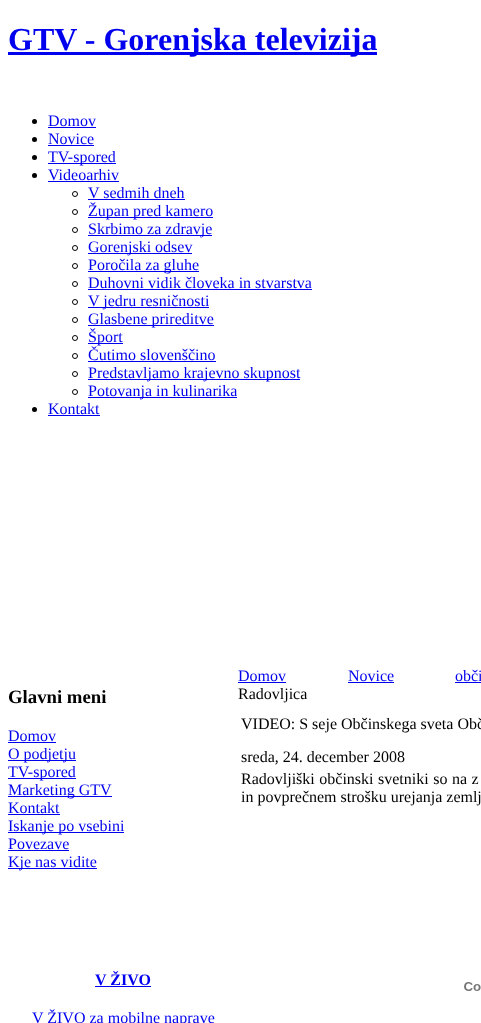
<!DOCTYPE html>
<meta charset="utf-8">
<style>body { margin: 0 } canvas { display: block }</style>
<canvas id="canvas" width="481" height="1023"></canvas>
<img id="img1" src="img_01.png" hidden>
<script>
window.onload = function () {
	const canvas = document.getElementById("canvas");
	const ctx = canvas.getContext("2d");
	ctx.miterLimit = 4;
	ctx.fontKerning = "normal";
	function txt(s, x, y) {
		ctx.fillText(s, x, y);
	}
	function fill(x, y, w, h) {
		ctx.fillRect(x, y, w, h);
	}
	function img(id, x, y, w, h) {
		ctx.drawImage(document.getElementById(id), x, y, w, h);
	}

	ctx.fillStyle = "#FFFFFF";
	fill(0, 0, 481, 1023);
	ctx.fillStyle = "#0000EE";
	fill(8, 52, 369, 3);
	ctx.fillStyle = "#000000";
	ctx.beginPath();
	ctx.arc(34.5, 121.5, 2.5, 0, Math.PI * 2);
	ctx.fill();
	ctx.fillStyle = "#0000EE";
	fill(48, 127, 48, 1);
	ctx.fillStyle = "#000000";
	ctx.beginPath();
	ctx.arc(34.5, 139.5, 2.5, 0, Math.PI * 2);
	ctx.fill();
	ctx.fillStyle = "#0000EE";
	fill(48, 145, 46, 1);
	ctx.fillStyle = "#000000";
	ctx.beginPath();
	ctx.arc(34.5, 157.5, 2.5, 0, Math.PI * 2);
	ctx.fill();
	ctx.fillStyle = "#0000EE";
	fill(48, 163, 68, 1);
	ctx.fillStyle = "#000000";
	ctx.beginPath();
	ctx.arc(34.5, 175.5, 2.5, 0, Math.PI * 2);
	ctx.fill();
	ctx.fillStyle = "#0000EE";
	fill(48, 181, 71, 1);
	ctx.beginPath();
	ctx.arc(75, 194, 2.5, 0, Math.PI * 2);
	ctx.strokeStyle = "#000000";
	ctx.stroke();
	fill(88, 199, 97, 1);
	ctx.beginPath();
	ctx.arc(75, 212, 2.5, 0, Math.PI * 2);
	ctx.stroke();
	fill(88, 217, 125, 1);
	ctx.beginPath();
	ctx.arc(75, 230, 2.5, 0, Math.PI * 2);
	ctx.stroke();
	fill(88, 235, 124, 1);
	ctx.beginPath();
	ctx.arc(75, 248, 2.5, 0, Math.PI * 2);
	ctx.stroke();
	fill(88, 253, 104, 1);
	ctx.beginPath();
	ctx.arc(75, 266, 2.5, 0, Math.PI * 2);
	ctx.stroke();
	fill(88, 271, 111, 1);
	ctx.beginPath();
	ctx.arc(75, 284, 2.5, 0, Math.PI * 2);
	ctx.stroke();
	fill(88, 289, 224, 1);
	ctx.beginPath();
	ctx.arc(75, 302, 2.5, 0, Math.PI * 2);
	ctx.stroke();
	fill(88, 307, 121, 1);
	ctx.beginPath();
	ctx.arc(75, 320, 2.5, 0, Math.PI * 2);
	ctx.stroke();
	fill(88, 325, 126, 1);
	ctx.beginPath();
	ctx.arc(75, 338, 2.5, 0, Math.PI * 2);
	ctx.stroke();
	fill(88, 343, 35, 1);
	ctx.beginPath();
	ctx.arc(75, 356, 2.5, 0, Math.PI * 2);
	ctx.stroke();
	fill(88, 361, 128, 1);
	ctx.beginPath();
	ctx.arc(75, 374, 2.5, 0, Math.PI * 2);
	ctx.stroke();
	fill(88, 379, 212, 1);
	ctx.beginPath();
	ctx.arc(75, 392, 2.5, 0, Math.PI * 2);
	ctx.stroke();
	fill(88, 397, 149, 1);
	ctx.fillStyle = "#000000";
	ctx.beginPath();
	ctx.arc(34.5, 409.5, 2.5, 0, Math.PI * 2);
	ctx.fill();
	ctx.fillStyle = "#0000EE";
	fill(48, 415, 52, 1);
	fill(8, 742, 48, 1);
	fill(8, 760, 68, 1);
	fill(8, 778, 68, 1);
	fill(8, 796, 104, 1);
	fill(8, 814, 52, 1);
	fill(8, 832, 116, 1);
	fill(8, 850, 61, 1);
	fill(8, 868, 89, 1);
	fill(95, 986, 56, 1);
	fill(238, 682, 48, 1);
	fill(348, 682, 46, 1);
	fill(455, 682, 26, 1);
	img("img1", 464, 982, 17, 9);
	ctx.font = "bold 32px Liberation Serif";
	txt("GTV - Gorenjska televizija", 8, 50);
	ctx.font = "16px Liberation Serif";
	txt("Domov", 48, 126);
	txt("Novice", 48, 144);
	txt("TV-spored", 48, 162);
	txt("Videoarhiv", 48, 180);
	txt("V sedmih dneh", 88, 198);
	txt("Župan pred kamero", 88, 216);
	txt("Skrbimo za zdravje", 88, 234);
	txt("Gorenjski odsev", 88, 252);
	txt("Poročila za gluhe", 88, 270);
	txt("Duhovni vidik človeka in stvarstva", 88, 288);
	txt("V jedru resničnosti", 88, 306);
	txt("Glasbene prireditve", 88, 324);
	txt("Šport", 88, 342);
	txt("Čutimo slovenščino", 88, 360);
	txt("Predstavljamo krajevno skupnost", 88, 378);
	txt("Potovanja in kulinarika", 88, 396);
	txt("Kontakt", 48, 414);
	ctx.font = "bold 18.75px Liberation Serif";
	ctx.fillStyle = "#000000";
	txt("Glavni meni", 8, 703);
	ctx.font = "16px Liberation Serif";
	ctx.fillStyle = "#0000EE";
	txt("Domov", 8, 741);
	txt("O podjetju", 8, 759);
	txt("TV-spored", 8, 777);
	txt("Marketing GTV", 8, 795);
	txt("Kontakt", 8, 813);
	txt("Iskanje po vsebini", 8, 831);
	txt("Povezave", 8, 849);
	txt("Kje nas vidite", 8, 867);
	ctx.font = "bold 16px Liberation Serif";
	txt("V ŽIVO", 95, 985);
	ctx.font = "16px Liberation Serif";
	txt("V ŽIVO za mobilne naprave", 32, 1023);
	txt("Domov", 238, 681);
	txt("Novice", 348, 681);
	txt("obči", 455, 681);
	ctx.fillStyle = "#000000";
	txt("Radovljica", 238, 699);
	txt("VIDEO: S seje Občinskega sveta Obč", 241, 729);
	txt("sreda, 24. december 2008", 241, 762);
	ctx.wordSpacing = "0.5px";
	txt("Radovljiški občinski svetniki so na z", 241, 784);
	ctx.wordSpacing = "0px";
	txt("in povprečnem strošku urejanja zemlj", 241, 802);
};
</script>
